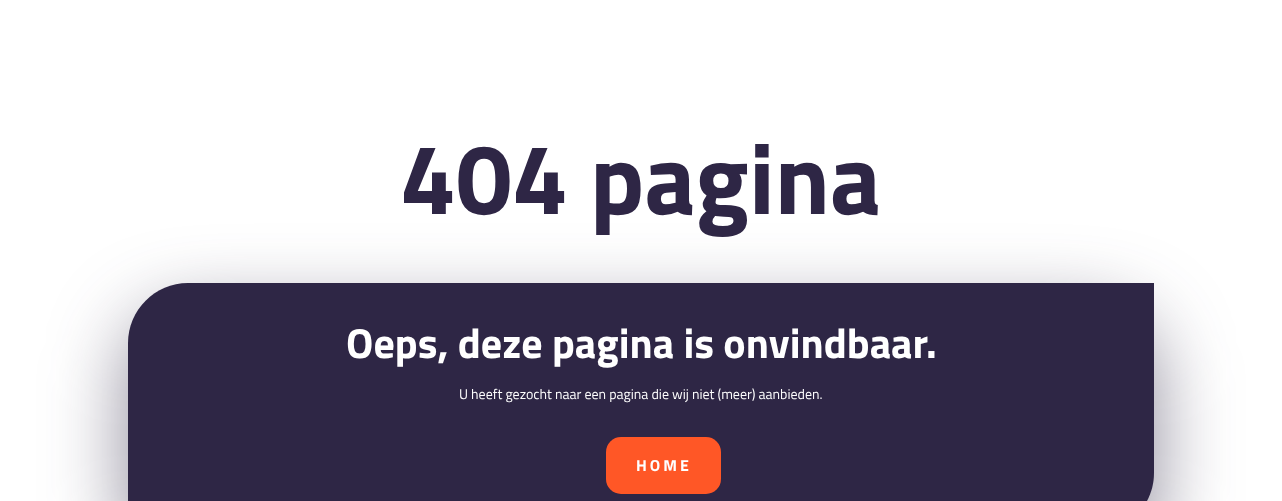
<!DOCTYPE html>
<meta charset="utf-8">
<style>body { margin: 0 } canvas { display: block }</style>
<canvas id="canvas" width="1282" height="501"></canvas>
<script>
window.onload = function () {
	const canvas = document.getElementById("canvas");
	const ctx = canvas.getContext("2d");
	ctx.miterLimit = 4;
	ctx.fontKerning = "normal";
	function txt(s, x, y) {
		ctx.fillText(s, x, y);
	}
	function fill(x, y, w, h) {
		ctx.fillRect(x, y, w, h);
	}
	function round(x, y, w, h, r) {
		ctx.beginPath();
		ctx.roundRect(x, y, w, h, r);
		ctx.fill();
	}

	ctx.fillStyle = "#FFFFFF";
	fill(0, 0, 1282, 501);
	ctx.fillStyle = "rgba(46, 38, 69, 0.54)";
	ctx.filter = "blur(40px)";
	ctx.beginPath();
	ctx.roundRect(128, 315, 1026, 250, 60);
	ctx.fill();
	ctx.filter = "none";
	ctx.fillStyle = "#2E2645";
	ctx.beginPath();
	ctx.moveTo(188, 283);
	ctx.lineTo(1154, 283);
	ctx.lineTo(1154, 473);
	ctx.bezierCurveTo(1154, 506, 1127, 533, 1094, 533);
	ctx.lineTo(128, 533);
	ctx.lineTo(128, 343);
	ctx.bezierCurveTo(128, 310, 155, 283, 188, 283);
	ctx.closePath();
	ctx.fill();
	ctx.fillStyle = "#FF5726";
	round(606, 437, 115, 57, 15);
	ctx.font = "bold 100px Titillium Web";
	ctx.fillStyle = "#2E2645";
	txt("404 pagina", 400, 214);
	ctx.font = "bold 42px Titillium Web";
	ctx.fillStyle = "#FFFFFF";
	txt("Oeps, deze pagina is onvindbaar.", 346, 358);
	ctx.font = "14px Titillium Web";
	txt("U heeft gezocht naar een pagina die wij niet (meer) aanbieden.", 459, 399);
	ctx.letterSpacing = "3px";
	ctx.font = "bold 16px Titillium Web";
	txt("HOME", 636, 471);
};
</script>
